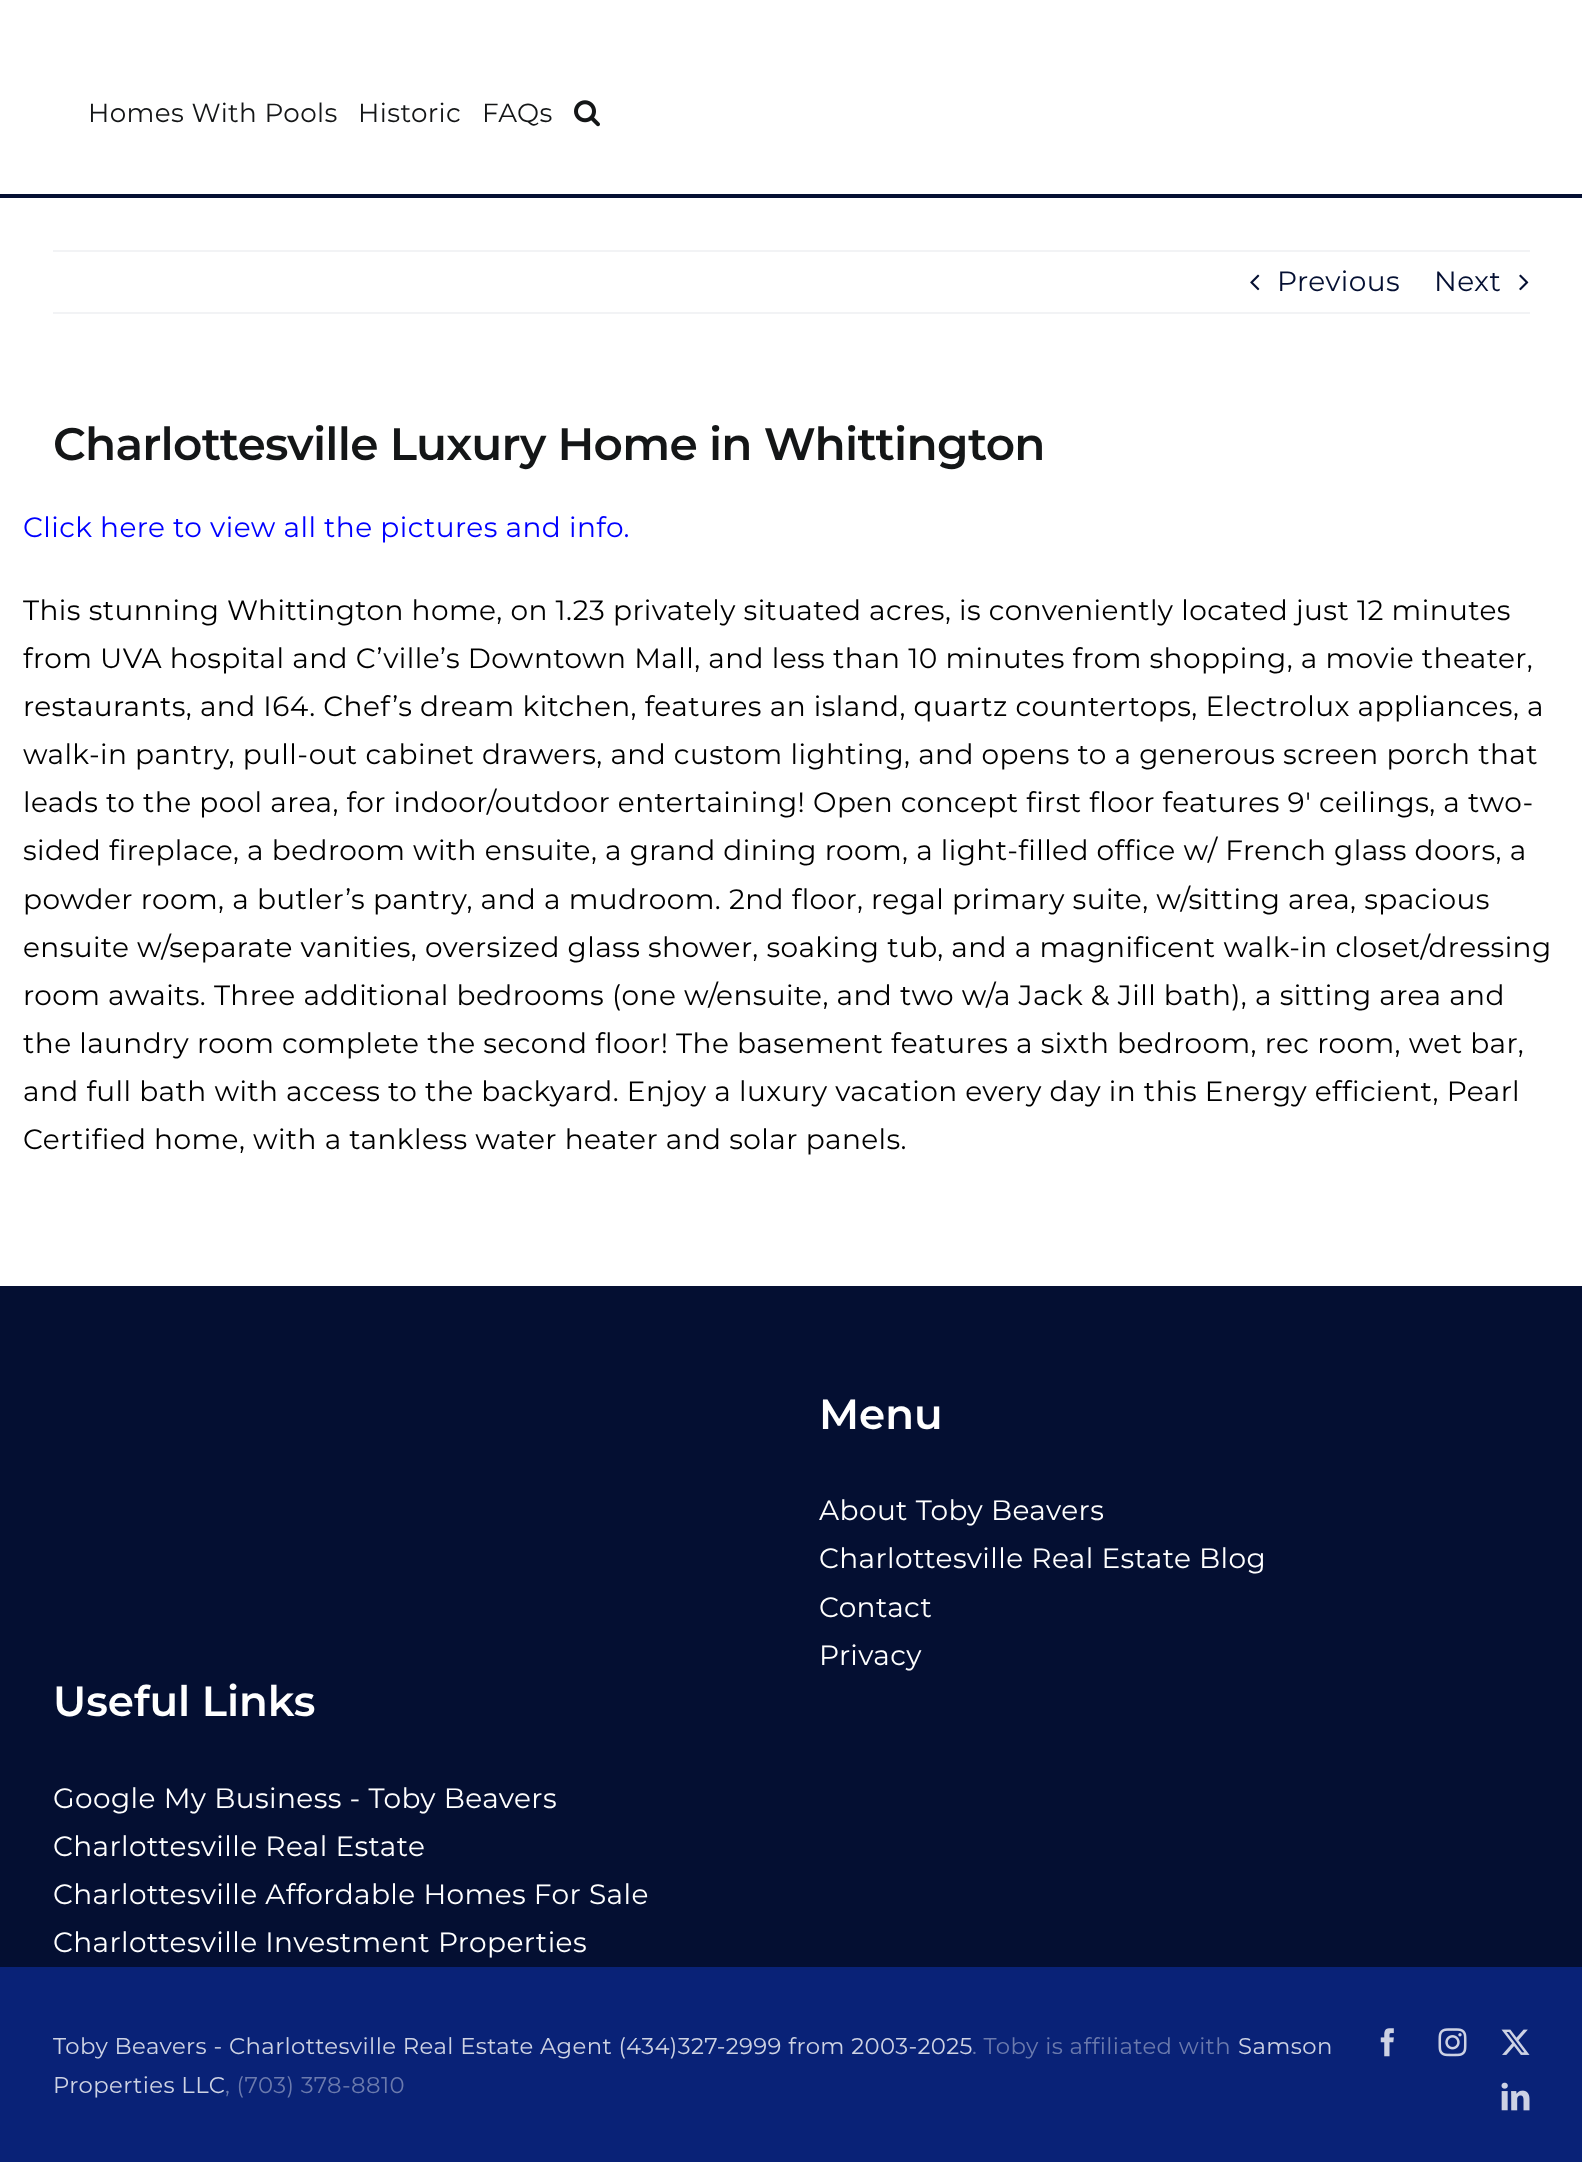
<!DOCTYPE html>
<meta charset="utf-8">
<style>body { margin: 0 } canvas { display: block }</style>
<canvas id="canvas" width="1582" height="2162"></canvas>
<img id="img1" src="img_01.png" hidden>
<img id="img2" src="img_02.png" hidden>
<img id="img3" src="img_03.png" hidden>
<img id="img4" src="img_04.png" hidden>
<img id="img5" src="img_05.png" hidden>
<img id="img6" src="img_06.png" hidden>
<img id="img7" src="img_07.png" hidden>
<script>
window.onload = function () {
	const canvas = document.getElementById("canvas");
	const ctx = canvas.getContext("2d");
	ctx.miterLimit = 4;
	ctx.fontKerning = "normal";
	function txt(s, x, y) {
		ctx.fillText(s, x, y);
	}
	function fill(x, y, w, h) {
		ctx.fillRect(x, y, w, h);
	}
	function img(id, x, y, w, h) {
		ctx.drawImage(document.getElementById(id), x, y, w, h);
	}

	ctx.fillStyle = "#FFFFFF";
	fill(0, 0, 1582, 2162);
	ctx.fillStyle = "#040F32";
	fill(0, 194, 1582, 4);
	img("img1", 574, 100, 26, 27);
	ctx.fillStyle = "#F2F3F5";
	fill(53, 250, 1477, 2);
	fill(53, 312, 1477, 2);
	img("img2", 1250, 274, 10, 17);
	img("img3", 1519, 274, 10, 17);
	ctx.fillStyle = "#040F32";
	fill(0, 1286, 1582, 681);
	ctx.fillStyle = "#092277";
	fill(0, 1967, 1582, 195);
	img("img4", 1380, 2028, 14, 29);
	img("img5", 1438, 2028, 29, 29);
	img("img6", 1501, 2029, 29, 26);
	img("img7", 1501, 2082, 29, 29);
	ctx.letterSpacing = "0.4px";
	ctx.font = "26.25px Montserrat";
	ctx.fillStyle = "#141617";
	txt("Homes With Pools", 88, 122);
	txt("Historic", 358, 122);
	txt("FAQs", 482, 122);
	ctx.letterSpacing = "0.42px";
	ctx.font = "28px Montserrat";
	ctx.fillStyle = "#040F32";
	txt("Previous", 1277, 291);
	txt("Next", 1434, 291);
	ctx.letterSpacing = "-0.7px";
	ctx.font = "600 45.5px Montserrat";
	ctx.fillStyle = "#141617";
	txt("Charlottesville Luxury Home in Whittington", 53, 460);
	ctx.letterSpacing = "0.42px";
	ctx.font = "28px Montserrat";
	ctx.fillStyle = "#0000FF";
	txt("Click here to view all the pictures and info.", 23, 537);
	ctx.fillStyle = "#000000";
	txt("This stunning Whittington home, on 1.23 privately situated acres, is conveniently located just 12 minutes", 23, 620);
	txt("from UVA hospital and C’ville’s Downtown Mall, and less than 10 minutes from shopping, a movie theater,", 23, 668);
	txt("restaurants, and I64. Chef’s dream kitchen, features an island, quartz countertops, Electrolux appliances, a", 23, 716);
	txt("walk-in pantry, pull-out cabinet drawers, and custom lighting, and opens to a generous screen porch that", 23, 764);
	txt("leads to the pool area, for indoor/outdoor entertaining! Open concept first floor features 9′ ceilings, a two-", 23, 812);
	txt("sided fireplace, a bedroom with ensuite, a grand dining room, a light-filled office w/ French glass doors, a", 23, 860);
	txt("powder room, a butler’s pantry, and a mudroom. 2nd floor, regal primary suite, w/sitting area, spacious", 23, 909);
	txt("ensuite w/separate vanities, oversized glass shower, soaking tub, and a magnificent walk-in closet/dressing", 23, 957);
	txt("room awaits. Three additional bedrooms (one w/ensuite, and two w/a Jack & Jill bath), a sitting area and", 23, 1005);
	txt("the laundry room complete the second floor! The basement features a sixth bedroom, rec room, wet bar,", 23, 1053);
	txt("and full bath with access to the backyard. Enjoy a luxury vacation every day in this Energy efficient, Pearl", 23, 1101);
	txt("Certified home, with a tankless water heater and solar panels.", 23, 1149);
	ctx.letterSpacing = "0px";
	ctx.font = "600 42px Montserrat";
	ctx.fillStyle = "#FFFFFF";
	txt("Menu", 819, 1429);
	ctx.letterSpacing = "0.42px";
	ctx.font = "28px Montserrat";
	txt("About Toby Beavers", 819, 1520);
	txt("Charlottesville Real Estate Blog", 819, 1568);
	txt("Contact", 819, 1617);
	txt("Privacy", 819, 1665);
	ctx.letterSpacing = "0px";
	ctx.font = "600 42px Montserrat";
	txt("Useful Links", 53, 1716);
	ctx.letterSpacing = "0.42px";
	ctx.font = "28px Montserrat";
	txt("Google My Business - Toby Beavers", 53, 1808);
	txt("Charlottesville Real Estate", 53, 1856);
	txt("Charlottesville Affordable Homes For Sale", 53, 1904);
	txt("Charlottesville Investment Properties", 53, 1952);
	ctx.font = "22.75px Montserrat";
	ctx.fillStyle = "#CED3E4";
	txt("Toby Beavers - Charlottesville Real Estate Agent (434)327-2999 from 2003-2025", 53, 2054);
	ctx.fillStyle = "#6B7AAD";
	txt(". Toby is affiliated with", 972, 2054);
	ctx.fillStyle = "#CED3E4";
	txt("Samson", 1238, 2054);
	txt("Properties LLC", 53, 2093);
	ctx.fillStyle = "#6B7AAD";
	txt(", (703) 378-8810", 225, 2093);
};
</script>
